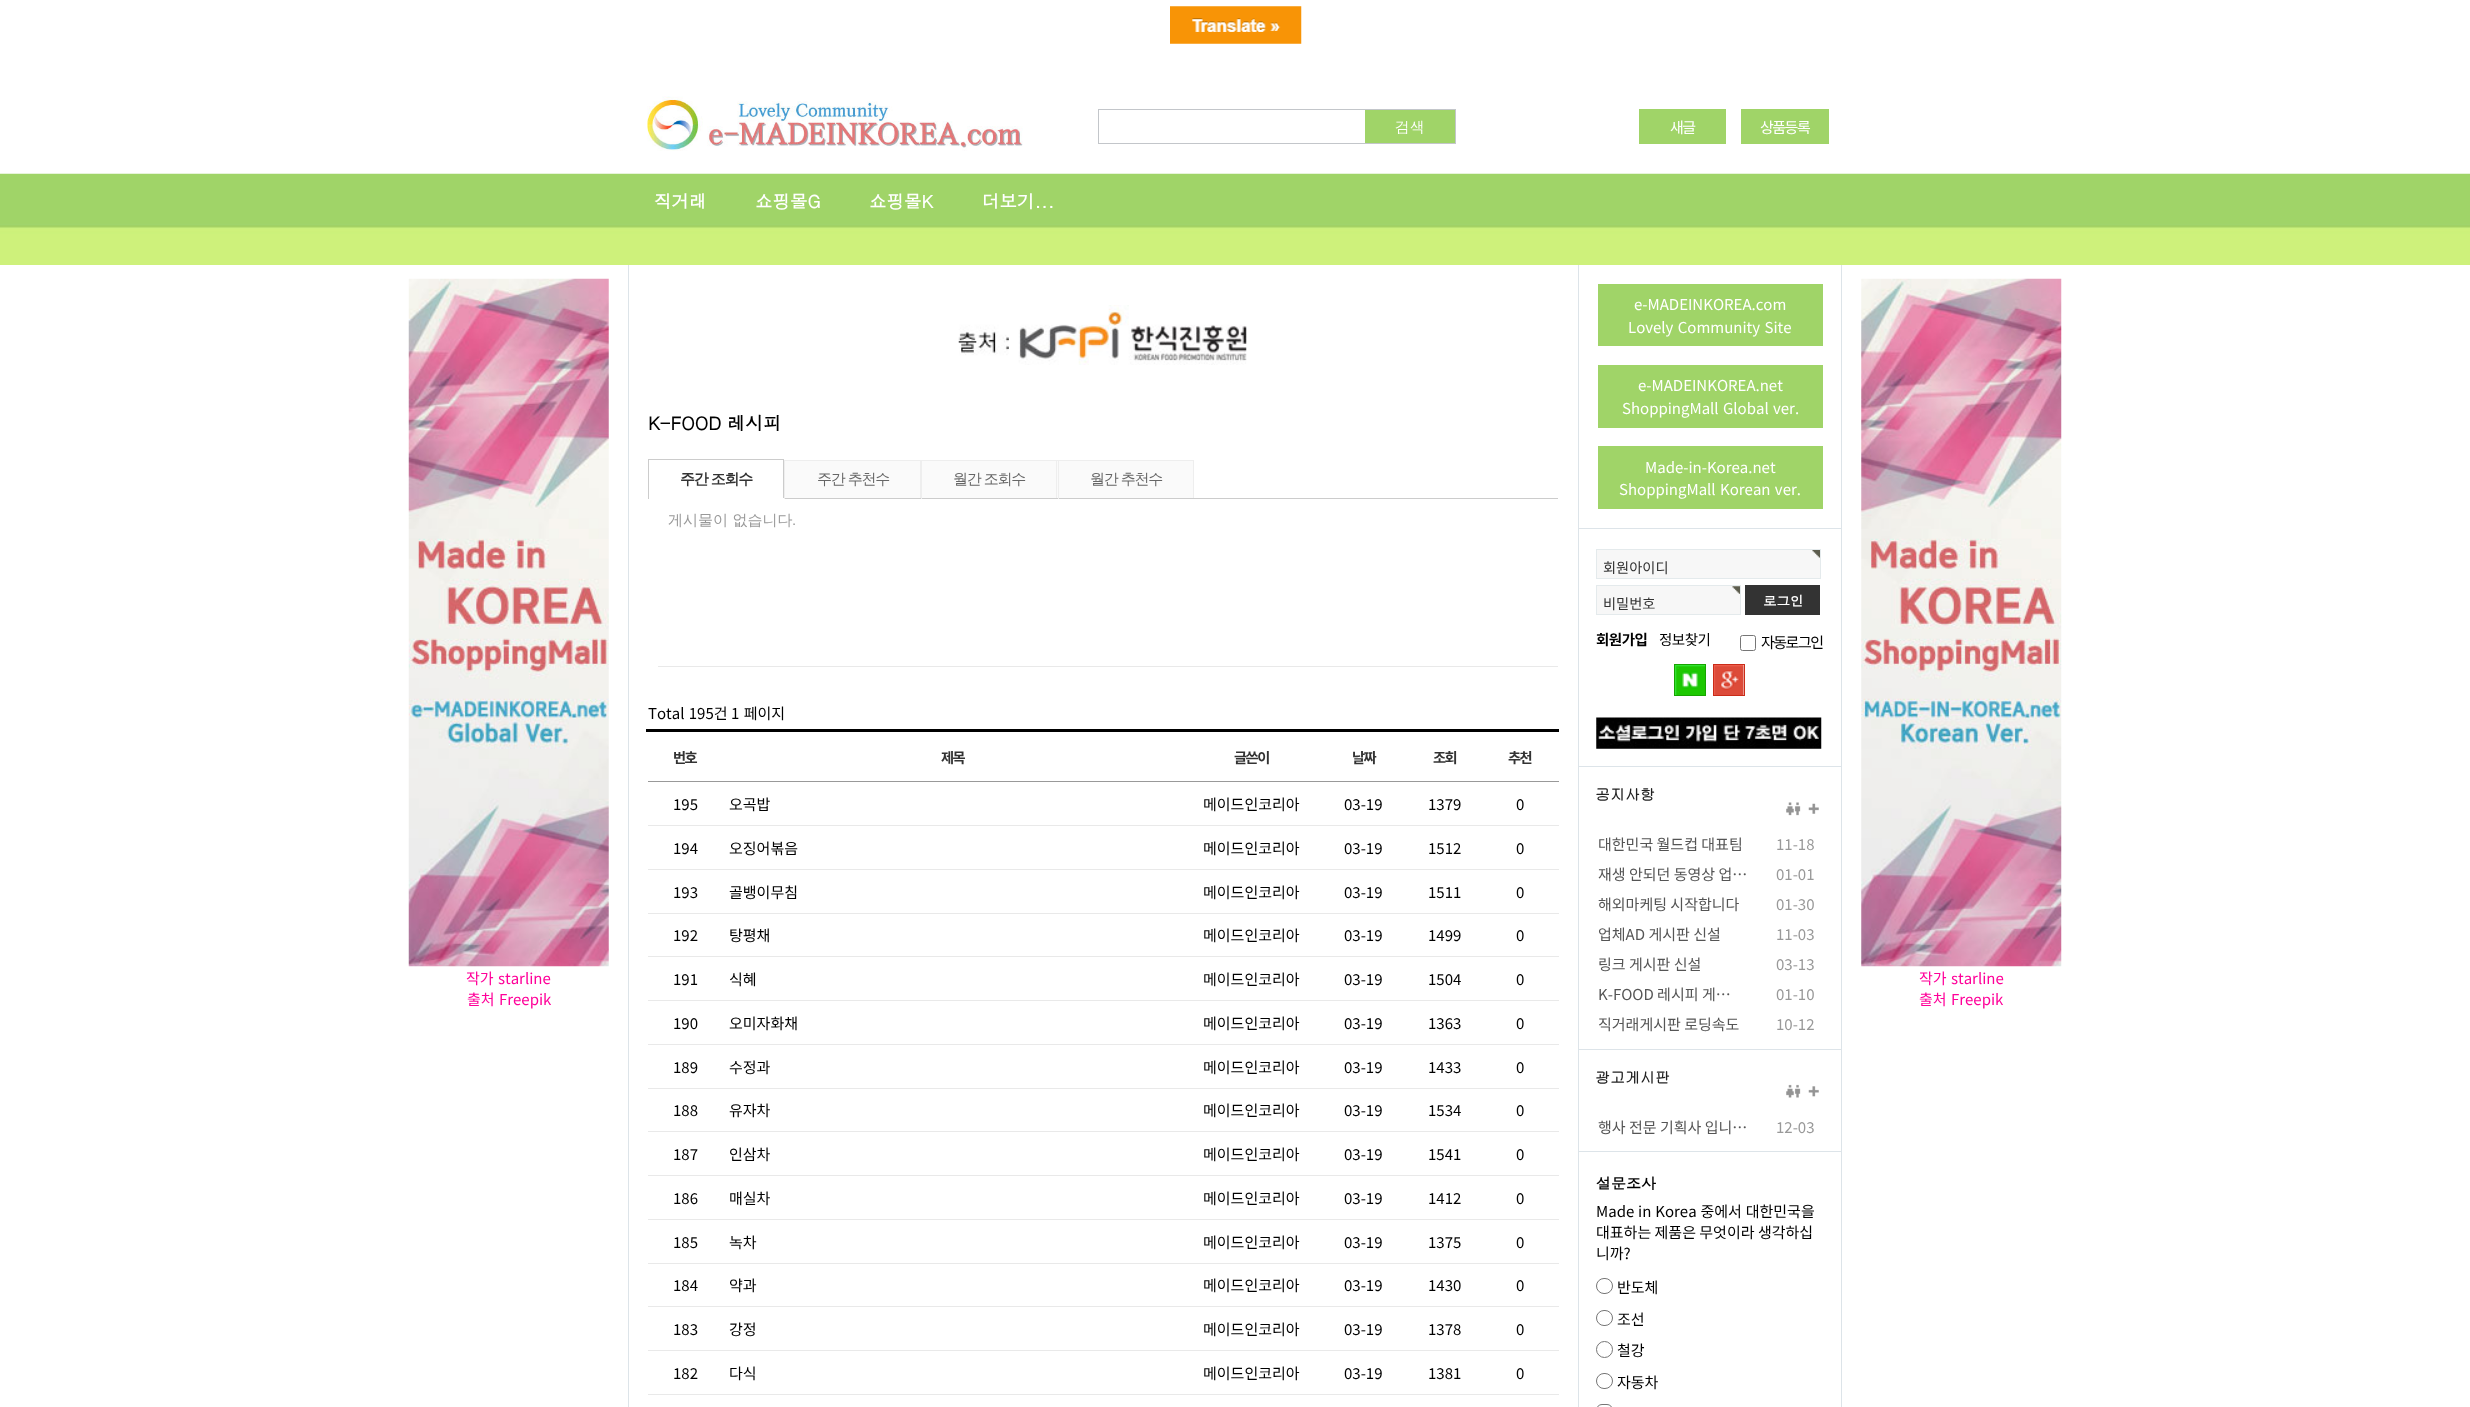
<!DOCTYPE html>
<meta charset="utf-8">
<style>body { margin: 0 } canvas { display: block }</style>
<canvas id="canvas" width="2470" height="1407"></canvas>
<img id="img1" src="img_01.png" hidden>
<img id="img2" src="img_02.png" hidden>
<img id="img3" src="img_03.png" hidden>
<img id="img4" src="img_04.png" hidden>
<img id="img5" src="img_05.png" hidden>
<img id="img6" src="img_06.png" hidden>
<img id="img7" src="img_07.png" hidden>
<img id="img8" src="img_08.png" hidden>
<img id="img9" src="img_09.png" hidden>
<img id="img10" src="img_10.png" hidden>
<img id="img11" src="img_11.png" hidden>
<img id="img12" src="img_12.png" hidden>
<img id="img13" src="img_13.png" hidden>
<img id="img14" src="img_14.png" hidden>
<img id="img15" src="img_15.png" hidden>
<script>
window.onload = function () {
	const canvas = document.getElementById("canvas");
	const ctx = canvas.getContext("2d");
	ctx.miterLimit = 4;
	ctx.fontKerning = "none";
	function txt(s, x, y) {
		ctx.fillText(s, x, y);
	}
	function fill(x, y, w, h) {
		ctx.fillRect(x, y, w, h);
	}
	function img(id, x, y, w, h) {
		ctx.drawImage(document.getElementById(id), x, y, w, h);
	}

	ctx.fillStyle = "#FFFFFF";
	fill(0, 0, 2470, 1407);
	img("img1", 1170, 6, 132, 38);
	img("img2", 647, 96, 376, 55);
	ctx.strokeStyle = "#C3C6CA";
	ctx.strokeRect(1098.5, 109.5, 357, 34);
	ctx.fillStyle = "#A0D468";
	fill(1365, 110, 90, 33);
	fill(1639, 109, 87, 35);
	fill(1741, 109, 88, 35);
	img("img3", 0, 173, 2470, 92);
	img("img4", 408, 278, 201, 689);
	ctx.fillStyle = "#DDE4E9";
	fill(1841, 265, 1, 1142);
	fill(628, 265, 1, 1142);
	fill(1578, 265, 1, 1142);
	img("img5", 958, 305, 289, 60);
	ctx.fillStyle = "#CCCCCC";
	fill(1194, 498, 364, 1);
	fill(648, 459, 136, 1);
	fill(783, 459, 1, 40);
	ctx.fillStyle = "#FFFFFF";
	fill(783, 498, 1, 1);
	ctx.fillStyle = "#CCCCCC";
	fill(648, 459, 1, 40);
	ctx.fillStyle = "#E9E9E9";
	fill(658, 666, 900, 1);
	ctx.fillStyle = "#FAFAFA";
	fill(785, 461, 135, 37);
	ctx.fillStyle = "#EEEEEE";
	fill(784, 460, 410, 1);
	fill(920, 460, 1, 39);
	ctx.fillStyle = "#CCCCCC";
	fill(784, 498, 137, 1);
	ctx.fillStyle = "#EEEEEE";
	fill(784, 460, 1, 39);
	ctx.fillStyle = "#FAFAFA";
	fill(922, 461, 136, 37);
	ctx.fillStyle = "#EEEEEE";
	fill(1056, 460, 1, 39);
	ctx.fillStyle = "#CCCCCC";
	fill(921, 498, 137, 1);
	ctx.fillStyle = "#EEEEEE";
	fill(921, 460, 1, 39);
	ctx.fillStyle = "#FAFAFA";
	fill(1059, 461, 134, 37);
	ctx.fillStyle = "#EEEEEE";
	fill(1193, 460, 1, 39);
	ctx.fillStyle = "#CCCCCC";
	fill(1058, 498, 136, 1);
	ctx.fillStyle = "#EEEEEE";
	fill(1058, 460, 1, 39);
	ctx.fillStyle = "#999999";
	fill(648, 781, 911, 1);
	ctx.fillStyle = "#000000";
	fill(646, 729, 913, 3);
	ctx.fillStyle = "#E9E9E9";
	fill(648, 825, 911, 1);
	fill(648, 869, 911, 1);
	fill(648, 913, 911, 1);
	fill(648, 956, 911, 1);
	fill(648, 1000, 911, 1);
	fill(648, 1044, 911, 1);
	fill(648, 1088, 911, 1);
	fill(648, 1131, 911, 1);
	fill(648, 1175, 911, 1);
	fill(648, 1219, 911, 1);
	fill(648, 1263, 911, 1);
	fill(648, 1306, 911, 1);
	fill(648, 1350, 911, 1);
	fill(648, 1394, 911, 1);
	ctx.fillStyle = "#A0D468";
	fill(1598, 284, 225, 62);
	fill(1598, 365, 225, 63);
	fill(1598, 446, 225, 63);
	ctx.fillStyle = "#DDE4E9";
	fill(1579, 528, 262, 1);
	fill(1579, 766, 262, 1);
	ctx.fillStyle = "#F7F7F7";
	fill(1597, 550, 223, 28);
	img("img6", 1812, 550, 8, 8);
	ctx.strokeStyle = "#E4EAEC";
	ctx.strokeRect(1596.5, 549.5, 224, 29);
	fill(1597, 586, 143, 28);
	img("img7", 1732, 586, 8, 8);
	ctx.strokeRect(1596.5, 585.5, 144, 29);
	ctx.fillStyle = "#333333";
	fill(1745, 585, 75, 30);
	ctx.beginPath();
	ctx.roundRect(1740.5, 635.5, 15, 15, 2);
	ctx.strokeStyle = "#767676";
	ctx.stroke();
	ctx.strokeStyle = "#18A400";
	ctx.strokeRect(1674.5, 664.5, 31, 31);
	img("img8", 1675, 665, 30, 30);
	ctx.strokeStyle = "#CA2C19";
	ctx.strokeRect(1713.5, 664.5, 31, 31);
	img("img9", 1714, 665, 30, 30);
	img("img10", 1596, 717, 226, 32);
	ctx.fillStyle = "#DDE4E9";
	fill(1579, 1049, 262, 1);
	img("img11", 1786, 802, 15, 14);
	img("img12", 1808, 803, 11, 11);
	fill(1579, 1151, 262, 1);
	img("img13", 1786, 1084, 15, 14);
	img("img14", 1808, 1086, 11, 11);
	ctx.beginPath();
	ctx.roundRect(1596.5, 1278.5, 16, 15, 7.5);
	ctx.strokeStyle = "#767676";
	ctx.stroke();
	ctx.beginPath();
	ctx.roundRect(1596.5, 1310.5, 16, 15, 7.5);
	ctx.stroke();
	ctx.beginPath();
	ctx.arc(1604.5, 1349.5, 8, 0, Math.PI * 2);
	ctx.stroke();
	ctx.beginPath();
	ctx.roundRect(1596.5, 1373.5, 16, 15, 7.5);
	ctx.stroke();
	ctx.beginPath();
	ctx.roundRect(1596.5, 1404.5, 16, 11, 7.5);
	ctx.stroke();
	img("img15", 1861, 278, 201, 689);
	ctx.font = "15px Dotum";
	ctx.fillStyle = "#FFFFFF";
	txt("검색", 1395, 133);
	ctx.letterSpacing = "-1.5px";
	ctx.font = "15px Noto Sans KR";
	txt("새글", 1670, 133);
	txt("상품등록", 1760, 133);
	ctx.letterSpacing = "0px";
	ctx.font = "bold 17.5px Dotum";
	txt("직거래", 654, 208);
	txt("쇼핑몰G", 755, 208);
	txt("쇼핑몰K", 869, 208);
	txt("더보기...", 982, 208);
	ctx.wordSpacing = "1px";
	ctx.font = "15px Noto Sans KR";
	ctx.fillStyle = "#FF0099";
	txt("작가 starline", 466, 984);
	txt("출처 Freepik", 467, 1005);
	ctx.wordSpacing = "0px";
	ctx.font = "bold 18px Dotum";
	ctx.fillStyle = "#000000";
	txt("K-FOOD 레시피", 648, 430);
	ctx.letterSpacing = "-1.25px";
	ctx.font = "bold 15px WenQuanYi Zen Hei";
	ctx.fillStyle = "#333333";
	txt("주간 조회수", 680, 484);
	ctx.letterSpacing = "0px";
	ctx.font = "500 15px WenQuanYi Zen Hei";
	ctx.fillStyle = "#999999";
	txt("게시물이 없습니다", 668, 525);
	ctx.font = "15px Liberation Sans";
	txt(".", 792, 525);
	ctx.letterSpacing = "-1.25px";
	ctx.font = "500 15px WenQuanYi Zen Hei";
	ctx.fillStyle = "#666666";
	txt("주간 추천수", 817, 484);
	txt("월간 조회수", 953, 484);
	txt("월간 추천수", 1090, 484);
	ctx.letterSpacing = "0px";
	ctx.wordSpacing = "1px";
	ctx.font = "15px Noto Sans KR";
	ctx.fillStyle = "#000000";
	txt("Total 195건", 648, 719);
	txt("1 페이지", 731, 719);
	ctx.letterSpacing = "-1.5px";
	ctx.wordSpacing = "0px";
	ctx.font = "bold 14.25px Noto Sans KR";
	ctx.fillStyle = "#333333";
	txt("번호", 673, 763);
	txt("제목", 941, 763);
	txt("글쓴이", 1234, 763);
	txt("날짜", 1352, 763);
	txt("조회", 1433, 763);
	txt("추천", 1508, 763);
	ctx.letterSpacing = "0px";
	ctx.font = "15px Noto Sans KR";
	ctx.fillStyle = "#000000";
	txt("195", 673, 810);
	txt("오곡밥", 729, 810);
	txt("메이드인코리아", 1203, 810);
	txt("03-19", 1344, 810);
	txt("1379", 1428, 810);
	txt("0", 1516, 810);
	txt("194", 673, 854);
	txt("오징어볶음", 729, 854);
	txt("메이드인코리아", 1203, 854);
	txt("03-19", 1344, 854);
	txt("1512", 1428, 854);
	txt("0", 1516, 854);
	txt("193", 673, 898);
	txt("골뱅이무침", 729, 898);
	txt("메이드인코리아", 1203, 898);
	txt("03-19", 1344, 898);
	txt("1511", 1428, 898);
	txt("0", 1516, 898);
	txt("192", 673, 941);
	txt("탕평채", 729, 941);
	txt("메이드인코리아", 1203, 941);
	txt("03-19", 1344, 941);
	txt("1499", 1428, 941);
	txt("0", 1516, 941);
	txt("191", 673, 985);
	txt("식혜", 729, 985);
	txt("메이드인코리아", 1203, 985);
	txt("03-19", 1344, 985);
	txt("1504", 1428, 985);
	txt("0", 1516, 985);
	txt("190", 673, 1029);
	txt("오미자화채", 729, 1029);
	txt("메이드인코리아", 1203, 1029);
	txt("03-19", 1344, 1029);
	txt("1363", 1428, 1029);
	txt("0", 1516, 1029);
	txt("189", 673, 1073);
	txt("수정과", 729, 1073);
	txt("메이드인코리아", 1203, 1073);
	txt("03-19", 1344, 1073);
	txt("1433", 1428, 1073);
	txt("0", 1516, 1073);
	txt("188", 673, 1116);
	txt("유자차", 729, 1116);
	txt("메이드인코리아", 1203, 1116);
	txt("03-19", 1344, 1116);
	txt("1534", 1428, 1116);
	txt("0", 1516, 1116);
	txt("187", 673, 1160);
	txt("인삼차", 729, 1160);
	txt("메이드인코리아", 1203, 1160);
	txt("03-19", 1344, 1160);
	txt("1541", 1428, 1160);
	txt("0", 1516, 1160);
	txt("186", 673, 1204);
	txt("매실차", 729, 1204);
	txt("메이드인코리아", 1203, 1204);
	txt("03-19", 1344, 1204);
	txt("1412", 1428, 1204);
	txt("0", 1516, 1204);
	txt("185", 673, 1248);
	txt("녹차", 729, 1248);
	txt("메이드인코리아", 1203, 1248);
	txt("03-19", 1344, 1248);
	txt("1375", 1428, 1248);
	txt("0", 1516, 1248);
	txt("184", 673, 1291);
	txt("약과", 729, 1291);
	txt("메이드인코리아", 1203, 1291);
	txt("03-19", 1344, 1291);
	txt("1430", 1428, 1291);
	txt("0", 1516, 1291);
	txt("183", 673, 1335);
	txt("강정", 729, 1335);
	txt("메이드인코리아", 1203, 1335);
	txt("03-19", 1344, 1335);
	txt("1378", 1428, 1335);
	txt("0", 1516, 1335);
	txt("182", 673, 1379);
	txt("다식", 729, 1379);
	txt("메이드인코리아", 1203, 1379);
	txt("03-19", 1344, 1379);
	txt("1381", 1428, 1379);
	txt("0", 1516, 1379);
	ctx.fillStyle = "#FFFFFF";
	txt("e-MADEINKOREA.com", 1634, 310);
	ctx.wordSpacing = "1px";
	txt("Lovely Community Site", 1628, 333);
	ctx.wordSpacing = "0px";
	txt("e-MADEINKOREA.net", 1638, 391);
	ctx.wordSpacing = "1px";
	txt("ShoppingMall Global ver.", 1622, 414);
	ctx.wordSpacing = "0px";
	txt("Made-in-Korea.net", 1645, 473);
	ctx.wordSpacing = "1px";
	txt("ShoppingMall Korean ver.", 1619, 495);
	ctx.wordSpacing = "0px";
	ctx.font = "14.25px Noto Sans KR";
	ctx.fillStyle = "#333333";
	txt("회원아이디", 1603, 573);
	ctx.font = "bold 13.5px Dotum";
	ctx.fillStyle = "#FFFFFF";
	txt("로그인", 1763, 606);
	ctx.font = "14.25px Noto Sans KR";
	ctx.fillStyle = "#333333";
	txt("비밀번호", 1603, 609);
	ctx.letterSpacing = "-0.5px";
	ctx.font = "bold 14.5px Noto Sans KR";
	ctx.fillStyle = "#000000";
	txt("회원가입", 1596, 645);
	ctx.font = "14.5px Noto Sans KR";
	txt("정보찾기", 1659, 645);
	ctx.letterSpacing = "-1.5px";
	ctx.font = "15px Noto Sans KR";
	txt("자동로그인", 1761, 648);
	ctx.letterSpacing = "0px";
	ctx.font = "bold 15px Gulim";
	ctx.fillStyle = "#222222";
	txt("공지사항", 1595, 800);
	ctx.font = "15px Noto Sans KR";
	ctx.fillStyle = "#555555";
	txt("대한민국 월드컵 대표팀", 1598, 850);
	ctx.fillStyle = "#999999";
	txt("11-18", 1776, 850);
	ctx.fillStyle = "#555555";
	txt("재생 안되던 동영상 업…", 1598, 880);
	ctx.fillStyle = "#999999";
	txt("01-01", 1776, 880);
	ctx.fillStyle = "#555555";
	txt("해외마케팅 시작합니다", 1598, 910);
	ctx.fillStyle = "#999999";
	txt("01-30", 1776, 910);
	ctx.fillStyle = "#555555";
	txt("업체AD 게시판 신설", 1598, 940);
	ctx.fillStyle = "#999999";
	txt("11-03", 1776, 940);
	ctx.fillStyle = "#555555";
	txt("링크 게시판 신설", 1598, 970);
	ctx.fillStyle = "#999999";
	txt("03-13", 1776, 970);
	ctx.fillStyle = "#555555";
	txt("K-FOOD 레시피 게…", 1598, 1000);
	ctx.fillStyle = "#999999";
	txt("01-10", 1776, 1000);
	ctx.fillStyle = "#555555";
	txt("직거래게시판 로딩속도", 1598, 1030);
	ctx.fillStyle = "#999999";
	txt("10-12", 1776, 1030);
	ctx.font = "bold 15px Gulim";
	ctx.fillStyle = "#222222";
	txt("광고게시판", 1595, 1083);
	ctx.font = "15px Noto Sans KR";
	ctx.fillStyle = "#555555";
	txt("행사 전문 기획사 입니…", 1598, 1133);
	ctx.fillStyle = "#999999";
	txt("12-03", 1776, 1133);
	ctx.font = "bold 15px Dotum";
	ctx.fillStyle = "#000000";
	txt("설문조사", 1596, 1189);
	ctx.wordSpacing = "0.5px";
	ctx.font = "15px Noto Sans KR";
	txt("Made in Korea 중에서 대한민국을", 1596, 1217);
	ctx.wordSpacing = "0px";
	txt("대표하는 제품은 무엇이라 생각하십", 1596, 1238);
	txt("니까?", 1596, 1259);
	txt("반도체", 1617, 1293);
	txt("조선", 1617, 1325);
	txt("철강", 1617, 1356);
	txt("자동차", 1617, 1388);
	ctx.wordSpacing = "1px";
	ctx.fillStyle = "#FF0099";
	txt("작가 starline", 1919, 984);
	txt("출처 Freepik", 1919, 1005);
};
</script>
